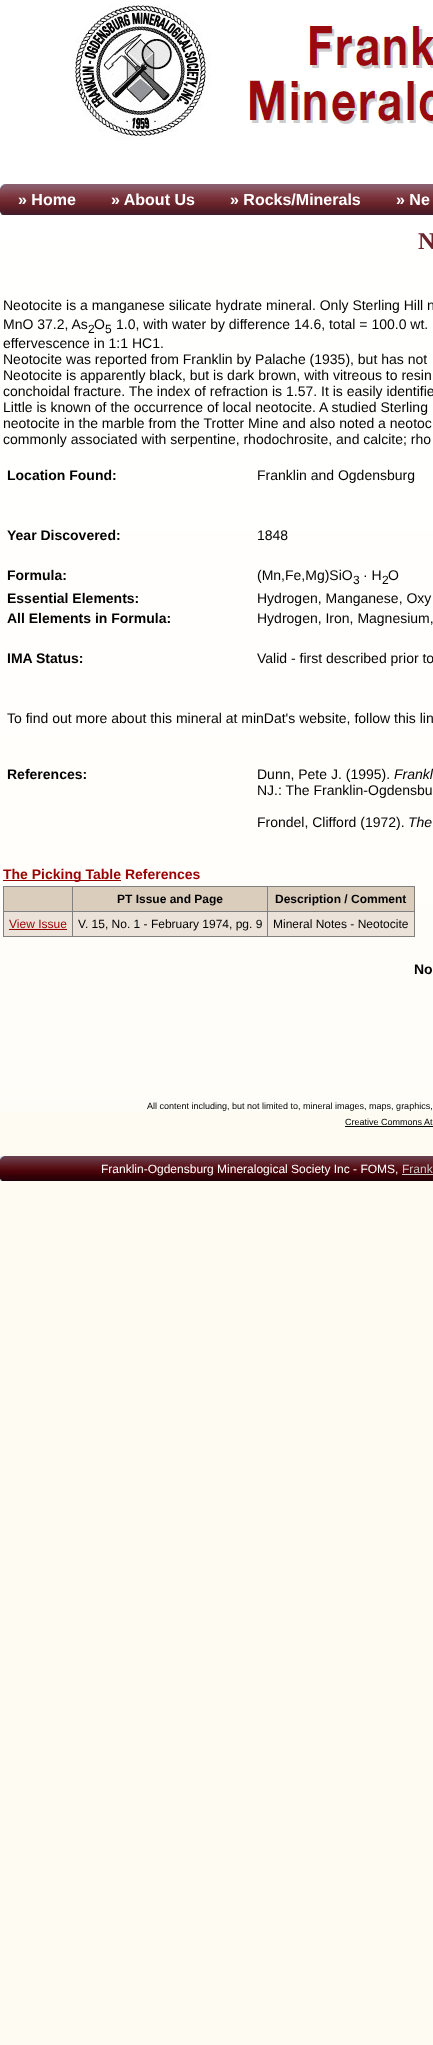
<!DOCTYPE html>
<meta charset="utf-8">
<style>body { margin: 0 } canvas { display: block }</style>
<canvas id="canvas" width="433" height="2045"></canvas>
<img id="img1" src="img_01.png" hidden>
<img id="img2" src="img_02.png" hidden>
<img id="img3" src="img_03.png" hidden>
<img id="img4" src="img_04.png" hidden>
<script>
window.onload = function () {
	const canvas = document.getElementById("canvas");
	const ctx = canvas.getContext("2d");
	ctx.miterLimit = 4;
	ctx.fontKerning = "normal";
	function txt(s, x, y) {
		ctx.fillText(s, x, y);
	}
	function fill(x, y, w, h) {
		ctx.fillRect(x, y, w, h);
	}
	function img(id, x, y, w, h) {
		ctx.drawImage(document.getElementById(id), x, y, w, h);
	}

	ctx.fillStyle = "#FEFBF3";
	fill(0, 0, 433, 2045);
	img("img1", 0, 0, 433, 1111);
	img("img2", 75, 4, 358, 136);
	img("img3", 0, 184, 433, 31);
	ctx.fillStyle = "#990000";
	fill(3, 880, 118, 1);
	ctx.fillStyle = "#EBE3DA";
	fill(4, 912, 410, 24);
	ctx.fillStyle = "#808080";
	fill(3, 886, 412, 1);
	fill(414, 886, 1, 51);
	fill(3, 936, 412, 1);
	fill(3, 886, 1, 51);
	ctx.fillStyle = "#DBCDBB";
	fill(4, 887, 410, 24);
	ctx.fillStyle = "#808080";
	fill(267, 911, 148, 1);
	fill(267, 911, 1, 26);
	fill(72, 911, 196, 1);
	fill(72, 911, 1, 26);
	fill(3, 911, 70, 1);
	fill(72, 886, 1, 26);
	fill(267, 886, 1, 26);
	ctx.fillStyle = "#990000";
	fill(9, 929, 58, 1);
	ctx.fillStyle = "#000000";
	fill(345, 1126, 88, 1);
	img("img4", 0, 1156, 433, 25);
	ctx.fillStyle = "#CCCCCC";
	fill(402, 1174, 31, 1);
	ctx.font = "bold 16px Liberation Sans";
	ctx.fillStyle = "#FFFFFF";
	txt("» Home", 18, 205);
	txt("» About Us", 111, 205);
	txt("» Rocks/Minerals", 230, 205);
	txt("» Ne", 396, 205);
	ctx.font = "bold 24px Liberation Serif";
	ctx.fillStyle = "#6D242D";
	txt("N", 418, 249);
	ctx.font = "14px Liberation Sans";
	ctx.fillStyle = "#000000";
	txt("Neotocite is a manganese silicate hydrate mineral. Only Sterling Hill n", 3, 310);
	txt("MnO 37.2, As", 3, 329);
	ctx.font = "12px Liberation Sans";
	txt("2", 88, 333);
	ctx.font = "14px Liberation Sans";
	txt("O", 94, 329);
	ctx.font = "12px Liberation Sans";
	txt("5", 105, 333);
	ctx.font = "14px Liberation Sans";
	txt("1.0, with water by difference 14.6, total = 100.0 wt.", 116, 329);
	txt("effervescence in 1:1 HC1.", 3, 348);
	txt("Neotocite was reported from Franklin by Palache (1935), but has not", 3, 364);
	txt("Neotocite is apparently black, but is dark brown, with vitreous to resin", 3, 380);
	txt("conchoidal fracture. The index of refraction is 1.57. It is easily identifie", 3, 396);
	txt("Little is known of the occurrence of local neotocite. A studied Sterling", 3, 412);
	txt("neotocite in the marble from the Trotter Mine and also noted a neotoc", 3, 428);
	txt("commonly associated with serpentine, rhodochrosite, and calcite; rho", 3, 444);
	ctx.font = "bold 14px Liberation Sans";
	txt("Location Found:", 7, 480);
	ctx.font = "14px Liberation Sans";
	txt("Franklin and Ogdensburg", 257, 480);
	ctx.font = "bold 14px Liberation Sans";
	txt("Year Discovered:", 7, 540);
	ctx.font = "14px Liberation Sans";
	txt("1848", 257, 540);
	ctx.font = "bold 14px Liberation Sans";
	txt("Formula:", 7, 580);
	ctx.font = "14px Liberation Sans";
	txt("(Mn,Fe,Mg)SiO", 257, 580);
	ctx.font = "12px Liberation Sans";
	txt("3", 353, 584);
	ctx.font = "14px Liberation Sans";
	txt("· H", 363, 580);
	ctx.font = "12px Liberation Sans";
	txt("2", 382, 584);
	ctx.font = "14px Liberation Sans";
	txt("O", 388, 580);
	ctx.font = "bold 14px Liberation Sans";
	txt("Essential Elements:", 7, 603);
	ctx.font = "14px Liberation Sans";
	txt("Hydrogen, Manganese, Oxy", 257, 603);
	ctx.font = "bold 14px Liberation Sans";
	txt("All Elements in Formula:", 7, 623);
	ctx.font = "14px Liberation Sans";
	txt("Hydrogen, Iron, Magnesium,", 257, 623);
	ctx.font = "bold 14px Liberation Sans";
	txt("IMA Status:", 7, 663);
	ctx.font = "14px Liberation Sans";
	txt("Valid - first described prior to", 257, 663);
	txt("To find out more about this mineral at minDat's website, follow this lin", 7, 723);
	ctx.font = "bold 14px Liberation Sans";
	txt("References:", 7, 779);
	ctx.font = "14px Liberation Sans";
	txt("Dunn, Pete J. (1995).", 257, 779);
	ctx.font = "italic 14px Liberation Sans";
	txt("Frankl", 394, 779);
	ctx.font = "14px Liberation Sans";
	txt("NJ.: The Franklin-Ogdensbu", 257, 795);
	txt("Frondel, Clifford (1972).", 257, 827);
	ctx.font = "italic 14px Liberation Sans";
	txt("The", 408, 827);
	ctx.font = "bold 14px Liberation Sans";
	ctx.fillStyle = "#990000";
	txt("The Picking Table References", 3, 879);
	ctx.font = "bold 12px Liberation Sans";
	ctx.fillStyle = "#000000";
	txt("PT Issue and Page", 117, 903);
	txt("Description / Comment", 275, 903);
	ctx.font = "12px Liberation Sans";
	ctx.fillStyle = "#990000";
	txt("View Issue", 9, 928);
	ctx.fillStyle = "#000000";
	txt("V. 15, No. 1 - February 1974, pg. 9", 78, 928);
	txt("Mineral Notes - Neotocite", 273, 928);
	ctx.font = "bold 14px Liberation Sans";
	txt("No", 414, 974);
	ctx.font = "9px Liberation Sans";
	txt("All content including, but not limited to, mineral images, maps, graphics,", 147, 1109);
	txt("Creative Commons At", 345, 1125);
	ctx.font = "12px Liberation Sans";
	ctx.fillStyle = "#FFFFFF";
	txt("Franklin-Ogdensburg Mineralogical Society Inc - FOMS,", 101, 1173);
	ctx.fillStyle = "#CCCCCC";
	txt("Frank", 402, 1173);
};
</script>
